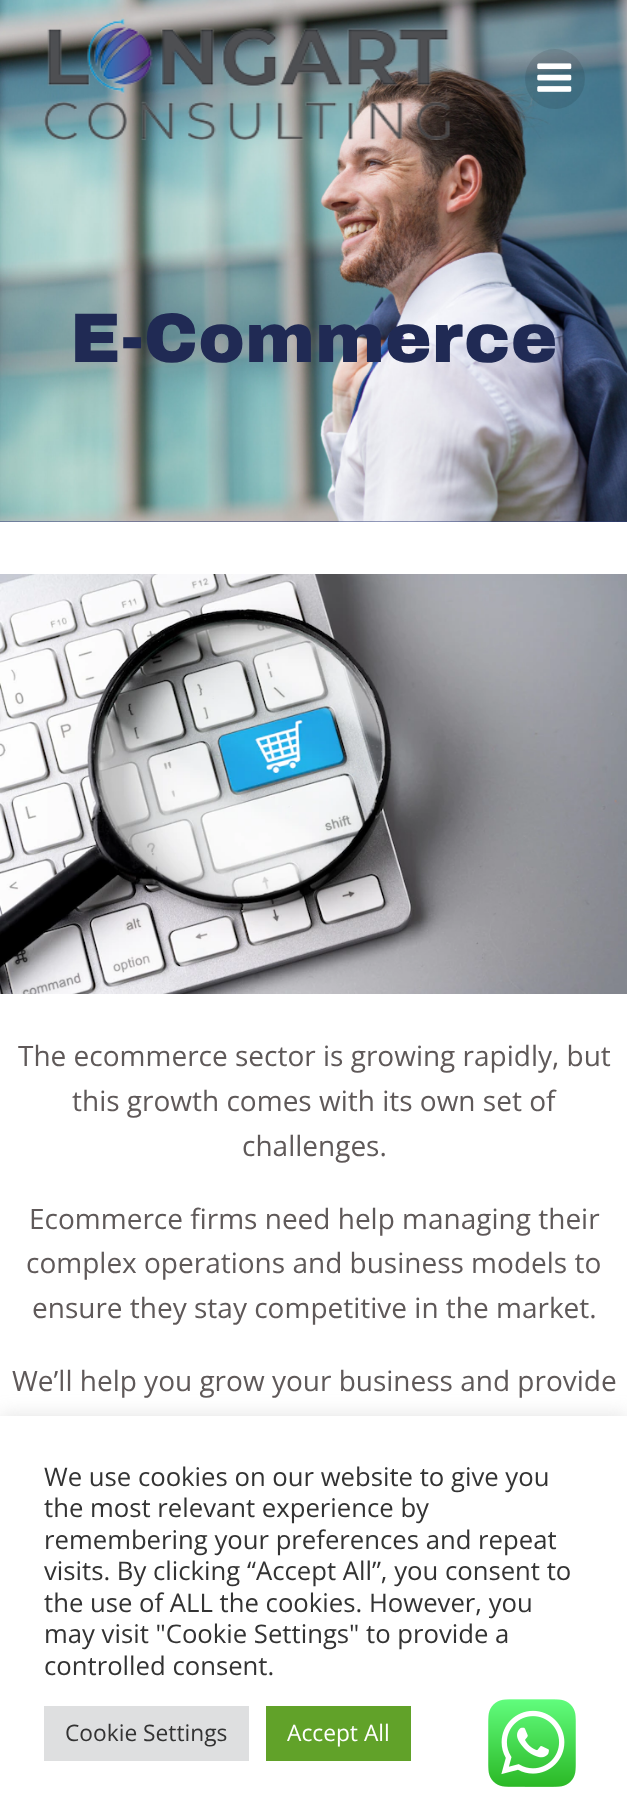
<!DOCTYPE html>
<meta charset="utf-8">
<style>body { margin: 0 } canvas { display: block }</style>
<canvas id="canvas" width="627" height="1813"></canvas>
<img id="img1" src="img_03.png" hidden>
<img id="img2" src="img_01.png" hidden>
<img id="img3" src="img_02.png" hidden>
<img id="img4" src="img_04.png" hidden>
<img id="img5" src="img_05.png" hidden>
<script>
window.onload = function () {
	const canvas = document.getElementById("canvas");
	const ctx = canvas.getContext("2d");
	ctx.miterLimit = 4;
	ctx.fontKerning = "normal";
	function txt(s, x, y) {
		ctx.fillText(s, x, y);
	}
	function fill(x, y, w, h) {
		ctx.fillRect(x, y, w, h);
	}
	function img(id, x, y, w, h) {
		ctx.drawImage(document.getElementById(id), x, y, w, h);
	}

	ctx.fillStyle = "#FFFFFF";
	fill(0, 0, 627, 1813);
	ctx.fillStyle = "#303E7A";
	fill(0, 521, 627, 1);
	img("img1", 0, 0, 627, 522);
	img("img2", 43, 18, 407, 122);
	ctx.fillStyle = "rgba(0, 0, 0, 0.1)";
	ctx.beginPath();
	ctx.arc(555, 79, 30, 0, Math.PI * 2);
	ctx.fill();
	img("img3", 537, 63, 35, 29);
	img("img4", 0, 574, 627, 420);
	ctx.fillStyle = "rgba(172, 171, 171, 0.3)";
	ctx.filter = "blur(9px)";
	ctx.beginPath();
	ctx.rect(0, 1414, 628, 397);
	ctx.fill();
	ctx.filter = "none";
	ctx.fillStyle = "#FFFFFF";
	fill(0, 1416, 627, 397);
	ctx.fillStyle = "#DEDFE0";
	fill(44, 1706, 205, 55);
	ctx.fillStyle = "#61A229";
	fill(266, 1706, 145, 55);
	img("img5", 488, 1699, 88, 88);
	ctx.font = "900 70px Archivo Black";
	ctx.fillStyle = "#202A54";
	txt("E-Commerce", 70, 362);
	ctx.font = "28px Open Sans";
	ctx.fillStyle = "#5F5959";
	txt("The ecommerce sector is growing rapidly, but", 18, 1066);
	txt("this growth comes with its own set of", 72, 1111);
	txt("challenges.", 242, 1156);
	txt("Ecommerce firms need help managing their", 29, 1229);
	txt("complex operations and business models to", 26, 1273);
	txt("ensure they stay competitive in the market.", 32, 1318);
	txt("We’ll help you grow your business and provide", 12, 1391);
	ctx.font = "25.7px Open Sans";
	ctx.fillStyle = "#333333";
	txt("We use cookies on our website to give you", 44, 1486);
	txt("the most relevant experience by", 44, 1517);
	txt("remembering your preferences and repeat", 44, 1549);
	txt("visits. By clicking “Accept All”, you consent to", 44, 1580);
	txt("the use of ALL the cookies. However, you", 44, 1612);
	txt("may visit \"Cookie Settings\" to provide a", 44, 1643);
	txt("controlled consent.", 44, 1675);
	ctx.font = "22.75px Open Sans";
	txt("Cookie Settings", 65, 1741);
	ctx.fillStyle = "#FFFFFF";
	txt("Accept All", 287, 1741);
};
</script>
